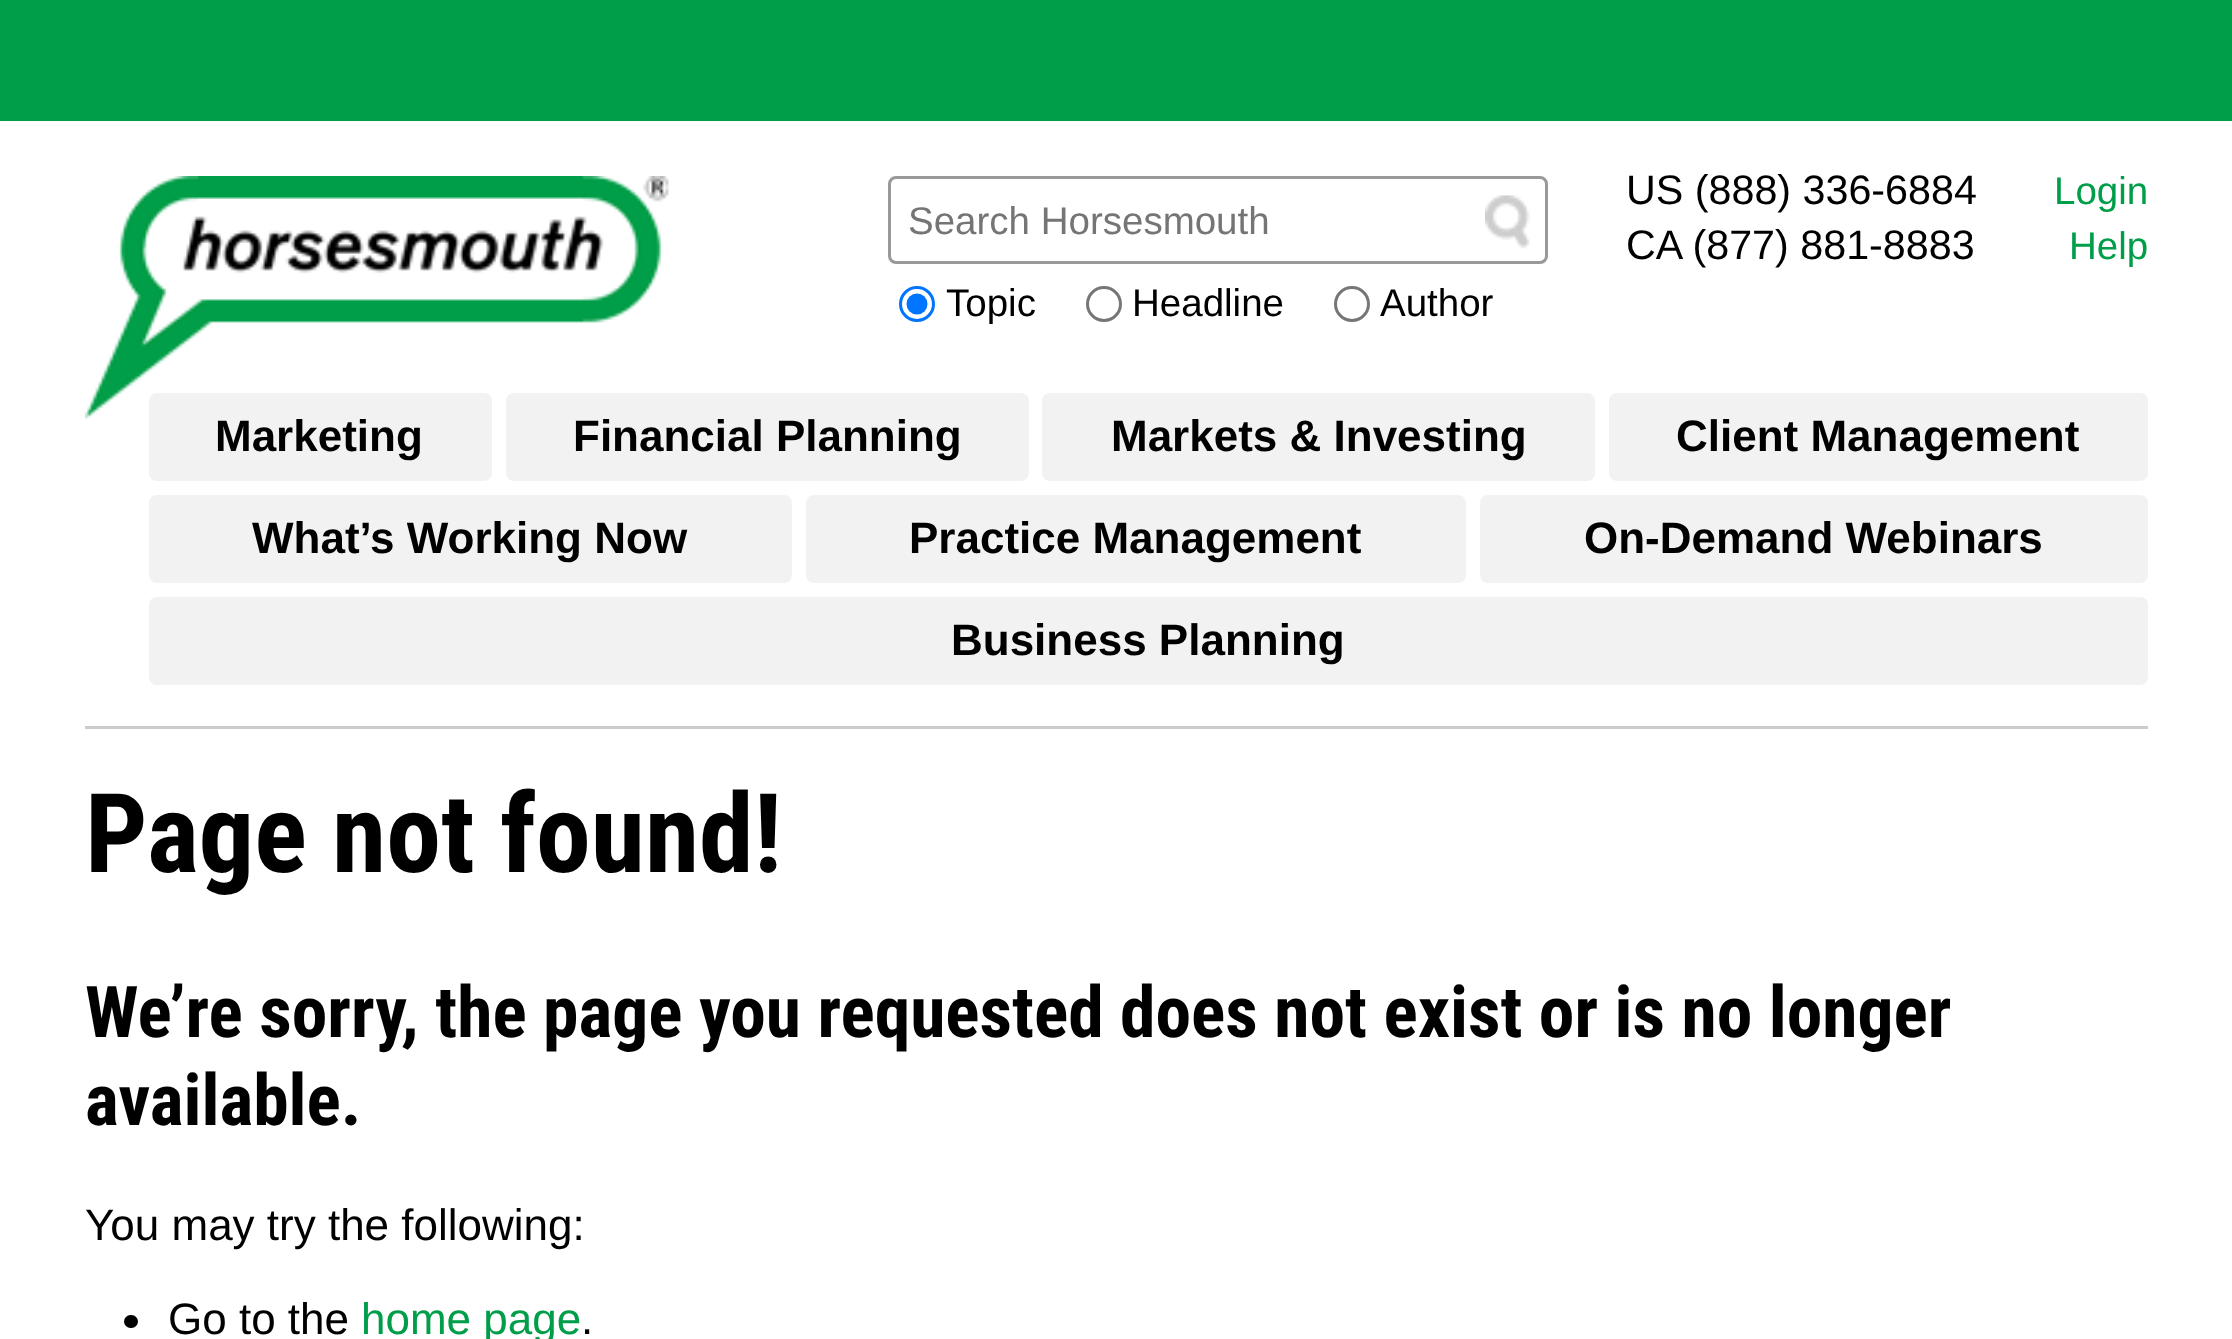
<!DOCTYPE html>
<meta charset="utf-8">
<style>body { margin: 0 } canvas { display: block }</style>
<canvas id="canvas" width="2232" height="1339"></canvas>
<img id="img1" src="img_01.png" hidden>
<img id="img2" src="img_02.png" hidden>
<script>
window.onload = function () {
	const canvas = document.getElementById("canvas");
	const ctx = canvas.getContext("2d");
	ctx.miterLimit = 4;
	ctx.fontKerning = "normal";
	function txt(s, x, y) {
		ctx.fillText(s, x, y);
	}
	function fill(x, y, w, h) {
		ctx.fillRect(x, y, w, h);
	}
	function round(x, y, w, h, r) {
		ctx.beginPath();
		ctx.roundRect(x, y, w, h, r);
		ctx.fill();
	}
	function img(id, x, y, w, h) {
		ctx.drawImage(document.getElementById(id), x, y, w, h);
	}

	ctx.fillStyle = "#FFFFFF";
	fill(0, 0, 2232, 1339);
	ctx.fillStyle = "#009E49";
	fill(0, 0, 2232, 121);
	img("img1", 85, 176, 584, 243);
	ctx.beginPath();
	ctx.roundRect(889.5, 177.5, 657, 85, 6.5);
	ctx.strokeStyle = "#999999";
	ctx.lineWidth = 3;
	ctx.stroke();
	img("img2", 1485, 195, 45, 54);
	ctx.beginPath();
	ctx.arc(917, 304, 16.5, 0, Math.PI * 2);
	ctx.strokeStyle = "#0075FF";
	ctx.stroke();
	ctx.fillStyle = "#0075FF";
	ctx.beginPath();
	ctx.arc(917, 304, 10.5, 0, Math.PI * 2);
	ctx.fill();
	ctx.beginPath();
	ctx.arc(1104, 304, 16.5, 0, Math.PI * 2);
	ctx.strokeStyle = "#767676";
	ctx.stroke();
	ctx.beginPath();
	ctx.arc(1352, 304, 16.5, 0, Math.PI * 2);
	ctx.stroke();
	ctx.fillStyle = "#F2F2F2";
	round(149, 393, 343, 88, 8);
	round(506, 393, 523, 88, 8);
	round(1042, 393, 553, 88, 8);
	round(1609, 393, 539, 88, 8);
	round(149, 495, 643, 88, 8);
	round(806, 495, 660, 88, 8);
	round(1480, 495, 668, 88, 8);
	round(149, 597, 1999, 88, 8);
	ctx.fillStyle = "#CCCCCC";
	fill(85, 726, 2063, 3);
	ctx.fillStyle = "#000000";
	round(124, 1315, 14, 13, 6.5);
	ctx.font = "41.25px Liberation Sans";
	txt("US (888) 336-6884", 1626, 204);
	txt("CA (877) 881-8883", 1626, 259);
	ctx.font = "38.5px Liberation Sans";
	ctx.fillStyle = "#009E49";
	txt("Login", 2054, 204);
	txt("Help", 2069, 259);
	ctx.fillStyle = "#757575";
	txt("Search Horsesmouth", 908, 234);
	ctx.fillStyle = "#000000";
	txt("Topic", 946, 316);
	txt("Headline", 1132, 316);
	txt("Author", 1380, 316);
	ctx.font = "bold 44px Liberation Sans";
	txt("Marketing", 215, 451);
	txt("Financial Planning", 573, 451);
	txt("Markets & Investing", 1111, 451);
	txt("Client Management", 1676, 451);
	txt("What’s Working Now", 252, 553);
	txt("Practice Management", 909, 553);
	txt("On-Demand Webinars", 1584, 553);
	txt("Business Planning", 951, 655);
	ctx.font = "bold 110px Roboto Condensed";
	txt("Page not found!", 85, 872);
	ctx.font = "bold 71.5px Roboto Condensed";
	txt("We’re sorry, the page you requested does not exist or is no longer", 85, 1037);
	txt("available.", 85, 1125);
	ctx.font = "44px Liberation Sans";
	txt("You may try the following:", 85, 1240);
	txt("Go to the", 168, 1334);
	ctx.fillStyle = "#009E49";
	txt("home page", 361, 1334);
	ctx.fillStyle = "#000000";
	txt(".", 581, 1334);
};
</script>
